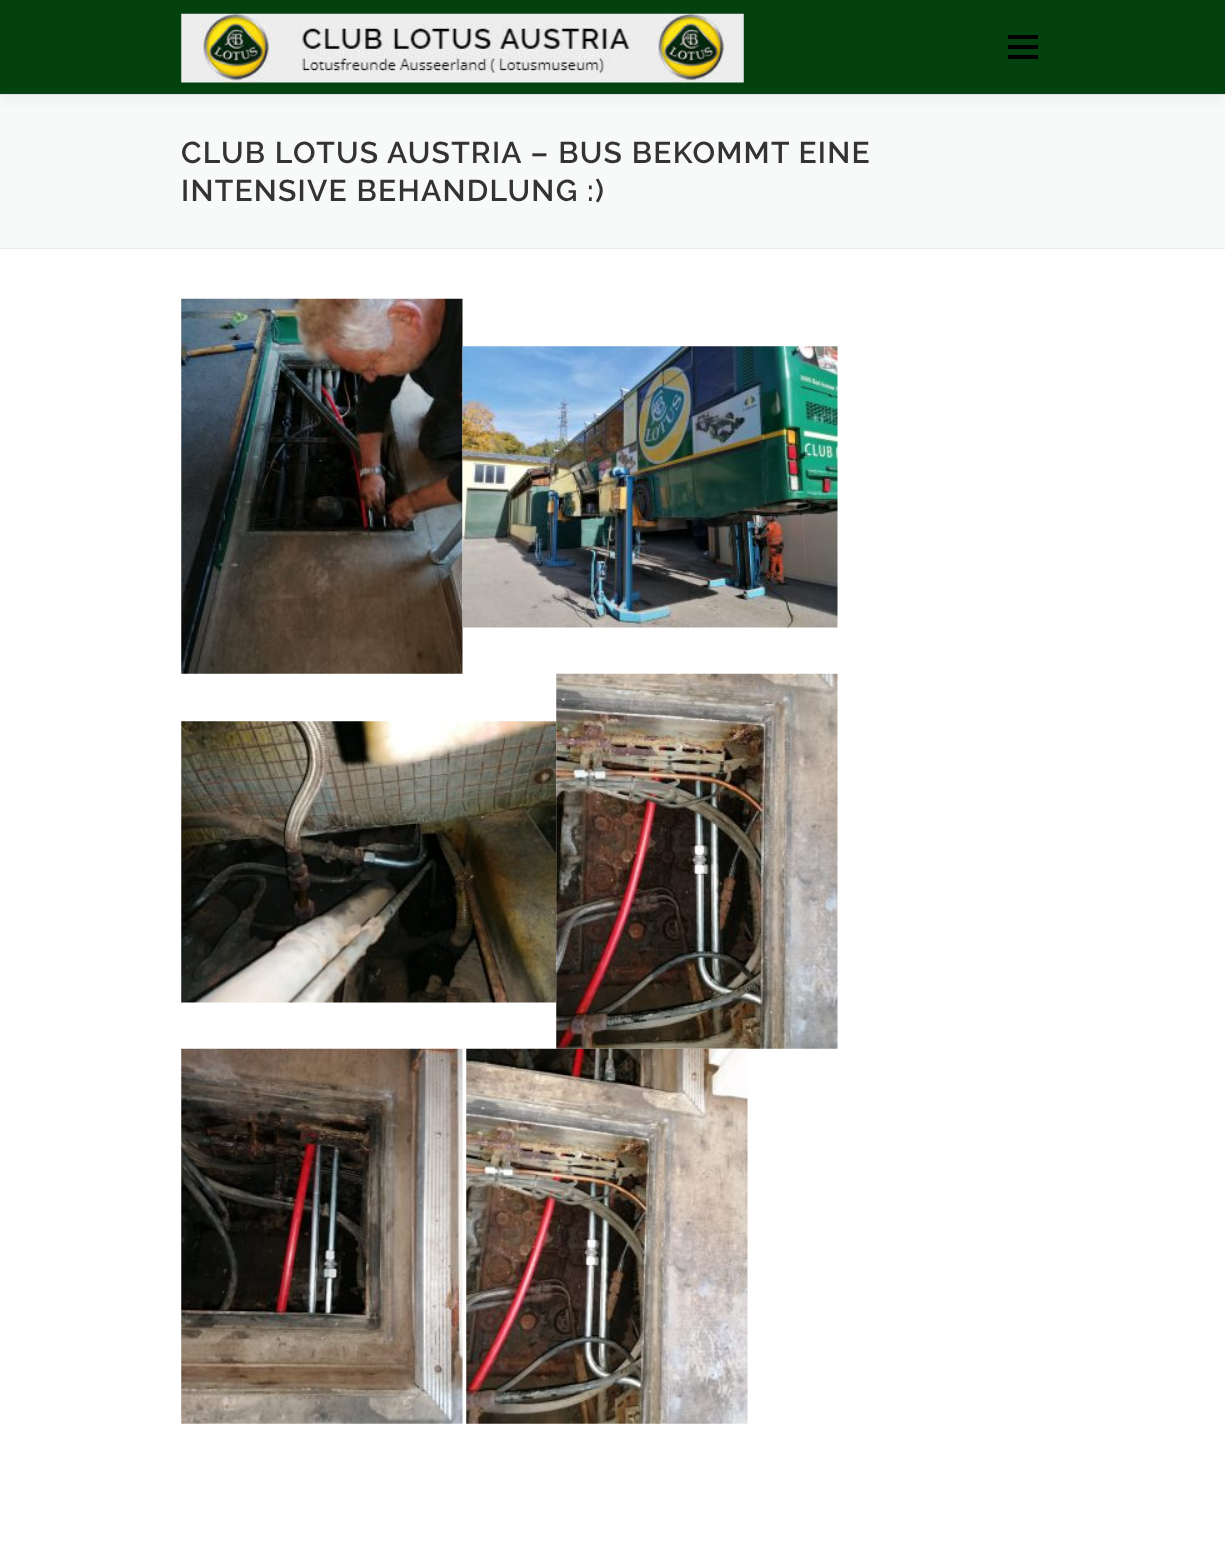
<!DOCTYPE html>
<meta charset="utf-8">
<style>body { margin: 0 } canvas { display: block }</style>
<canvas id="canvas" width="1225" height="1553"></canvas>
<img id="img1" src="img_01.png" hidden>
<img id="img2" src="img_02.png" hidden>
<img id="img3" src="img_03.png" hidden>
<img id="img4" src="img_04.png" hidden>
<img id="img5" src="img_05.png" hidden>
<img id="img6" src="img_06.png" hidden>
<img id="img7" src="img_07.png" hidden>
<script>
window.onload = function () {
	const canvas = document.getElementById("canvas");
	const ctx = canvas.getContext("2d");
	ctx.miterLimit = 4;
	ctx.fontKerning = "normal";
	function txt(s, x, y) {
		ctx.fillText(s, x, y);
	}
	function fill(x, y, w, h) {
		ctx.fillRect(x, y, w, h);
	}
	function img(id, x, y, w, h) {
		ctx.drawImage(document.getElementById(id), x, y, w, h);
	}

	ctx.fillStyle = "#FFFFFF";
	fill(0, 0, 1225, 1553);
	ctx.fillStyle = "#F8F9F9";
	fill(0, 95, 1225, 153);
	ctx.fillStyle = "#E9E9E9";
	fill(0, 94, 1225, 1);
	ctx.fillStyle = "rgba(50, 50, 50, 0.06)";
	ctx.filter = "blur(6px)";
	ctx.beginPath();
	ctx.rect(0, 6, 1225, 94);
	ctx.fill();
	ctx.filter = "none";
	ctx.fillStyle = "#03410E";
	fill(0, 0, 1225, 94);
	img("img1", 181, 13, 563, 70);
	ctx.fillStyle = "#000000";
	fill(1008, 45, 30, 4);
	fill(1008, 35, 30, 4);
	fill(1008, 55, 30, 4);
	ctx.fillStyle = "#E9E9E9";
	fill(0, 248, 1225, 1);
	img("img2", 181, 298, 282, 376);
	img("img3", 462, 346, 376, 282);
	img("img4", 181, 721, 376, 282);
	img("img5", 556, 673, 282, 376);
	img("img6", 181, 1048, 282, 376);
	img("img7", 466, 1048, 282, 376);
	ctx.letterSpacing = "1.25px";
	ctx.font = "600 30px Raleway";
	ctx.fillStyle = "#333333";
	txt("CLUB LOTUS AUSTRIA – BUS BEKOMMT EINE", 181, 163);
	txt("INTENSIVE BEHANDLUNG :)", 181, 201);
};
</script>
